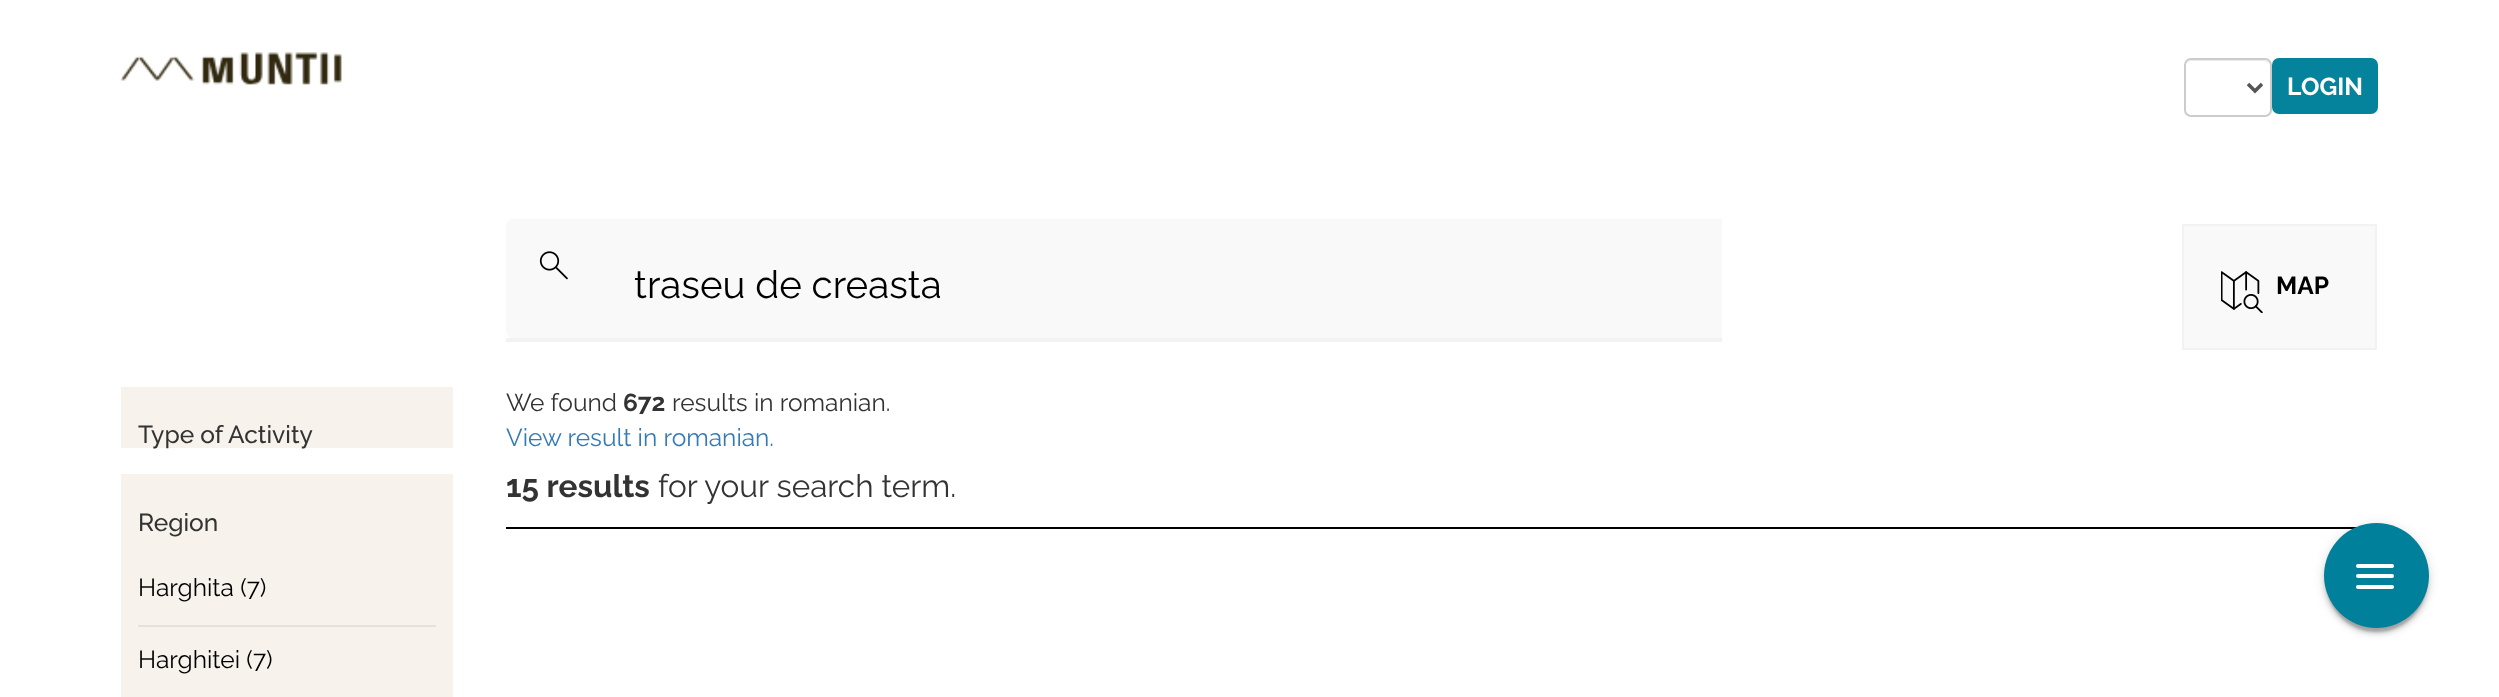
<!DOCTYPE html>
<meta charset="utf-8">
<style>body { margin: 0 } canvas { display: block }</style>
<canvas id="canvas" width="2499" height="697"></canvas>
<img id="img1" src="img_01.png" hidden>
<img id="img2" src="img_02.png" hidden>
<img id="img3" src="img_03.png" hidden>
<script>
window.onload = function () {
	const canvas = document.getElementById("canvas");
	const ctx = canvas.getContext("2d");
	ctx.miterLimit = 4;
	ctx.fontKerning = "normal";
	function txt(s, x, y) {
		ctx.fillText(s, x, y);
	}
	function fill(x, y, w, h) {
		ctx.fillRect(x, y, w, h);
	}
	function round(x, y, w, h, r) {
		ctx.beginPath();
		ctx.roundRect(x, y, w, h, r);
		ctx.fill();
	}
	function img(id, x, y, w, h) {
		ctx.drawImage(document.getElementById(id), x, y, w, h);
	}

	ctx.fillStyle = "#FFFFFF";
	fill(0, 0, 2499, 697);
	img("img1", 120, 52, 222, 33);
	ctx.fillStyle = "#ECECEC";
	ctx.beginPath();
	ctx.moveTo(2191, 61);
	ctx.lineTo(2264, 61);
	ctx.bezierCurveTo(2267, 61, 2270, 64, 2270, 66);
	ctx.bezierCurveTo(2270, 57, 2258, 60, 2253, 60);
	ctx.lineTo(2203, 60);
	ctx.bezierCurveTo(2198, 60, 2186, 57, 2186, 66);
	ctx.bezierCurveTo(2186, 64, 2188, 61, 2191, 61);
	ctx.closePath();
	ctx.fill();
	ctx.beginPath();
	ctx.roundRect(2185, 59, 86, 57, 6);
	ctx.strokeStyle = "#CCCCCC";
	ctx.lineWidth = 2;
	ctx.stroke();
	ctx.beginPath();
	ctx.moveTo(2248, 84);
	ctx.lineTo(2255, 91);
	ctx.lineTo(2262, 84);
	ctx.strokeStyle = "#555555";
	ctx.lineWidth = 3.5;
	ctx.stroke();
	ctx.fillStyle = "#05839C";
	round(2272, 58, 106, 56, 7);
	ctx.fillStyle = "#F2F2F2";
	fill(506, 338, 1216, 4);
	ctx.fillStyle = "#F9F9F9";
	ctx.beginPath();
	ctx.roundRect(506, 219, 1216, 119, [7, 0, 0, 7]);
	ctx.fill();
	img("img2", 539, 251, 29, 29);
	ctx.beginPath();
	ctx.rect(2183, 225, 193, 124);
	ctx.fill();
	ctx.strokeStyle = "#F2F2F2";
	ctx.lineWidth = 2;
	ctx.stroke();
	img("img3", 2221, 271, 42, 42);
	ctx.fillStyle = "#F7F3EC";
	fill(121, 387, 332, 61);
	fill(121, 474, 332, 223);
	ctx.fillStyle = "#E6E2DB";
	fill(138, 625, 298, 2);
	ctx.fillStyle = "#000000";
	fill(506, 527, 1851, 2);
	ctx.fillStyle = "rgba(0, 0, 0, 0.2)";
	ctx.filter = "blur(1px)";
	ctx.beginPath();
	ctx.roundRect(2326, 530, 101, 102, 50.5);
	ctx.fill();
	ctx.filter = "none";
	ctx.fillStyle = "rgba(0, 0, 0, 0.12)";
	ctx.filter = "blur(6px)";
	ctx.beginPath();
	ctx.roundRect(2324, 525, 105, 105, 52.5);
	ctx.fill();
	ctx.filter = "none";
	ctx.fillStyle = "rgba(0, 0, 0, 0.14)";
	ctx.filter = "blur(2.5px)";
	ctx.beginPath();
	ctx.roundRect(2324, 529, 105, 105, 52.5);
	ctx.fill();
	ctx.filter = "none";
	ctx.fillStyle = "#00809A";
	ctx.beginPath();
	ctx.arc(2376.5, 575.5, 52.5, 0, Math.PI * 2);
	ctx.fill();
	ctx.fillStyle = "#FFFFFF";
	round(2356, 564, 38, 4, 2);
	round(2356, 574, 38, 4, 2);
	round(2356, 585, 38, 4, 2);
	ctx.font = "bold 24.5px Raleway";
	txt("LOGIN", 2287, 95);
	ctx.font = "38.5px Raleway";
	ctx.fillStyle = "#000000";
	txt("traseu de creasta", 634, 298);
	ctx.font = "bold 24.5px Raleway";
	txt("MAP", 2276, 294);
	ctx.font = "500 24.5px Raleway";
	ctx.fillStyle = "#333333";
	txt("Type of Activity", 138, 443);
	txt("Region", 138, 531);
	ctx.font = "24.5px Raleway";
	ctx.fillStyle = "#000000";
	txt("Harghita (7)", 138, 596);
	txt("Harghitei (7)", 138, 668);
	ctx.fillStyle = "#333333";
	txt("We found", 506, 411);
	ctx.font = "bold 24.5px Raleway";
	txt("672", 623, 411);
	ctx.font = "24.5px Raleway";
	txt("results in romanian.", 672, 411);
	ctx.fillStyle = "#337AB7";
	txt("View result in romanian.", 506, 446);
	ctx.font = "bold 31.5px Raleway";
	ctx.fillStyle = "#333333";
	txt("15 results", 506, 497);
	ctx.font = "31.5px Raleway";
	txt("for your search term.", 658, 497);
};
</script>
